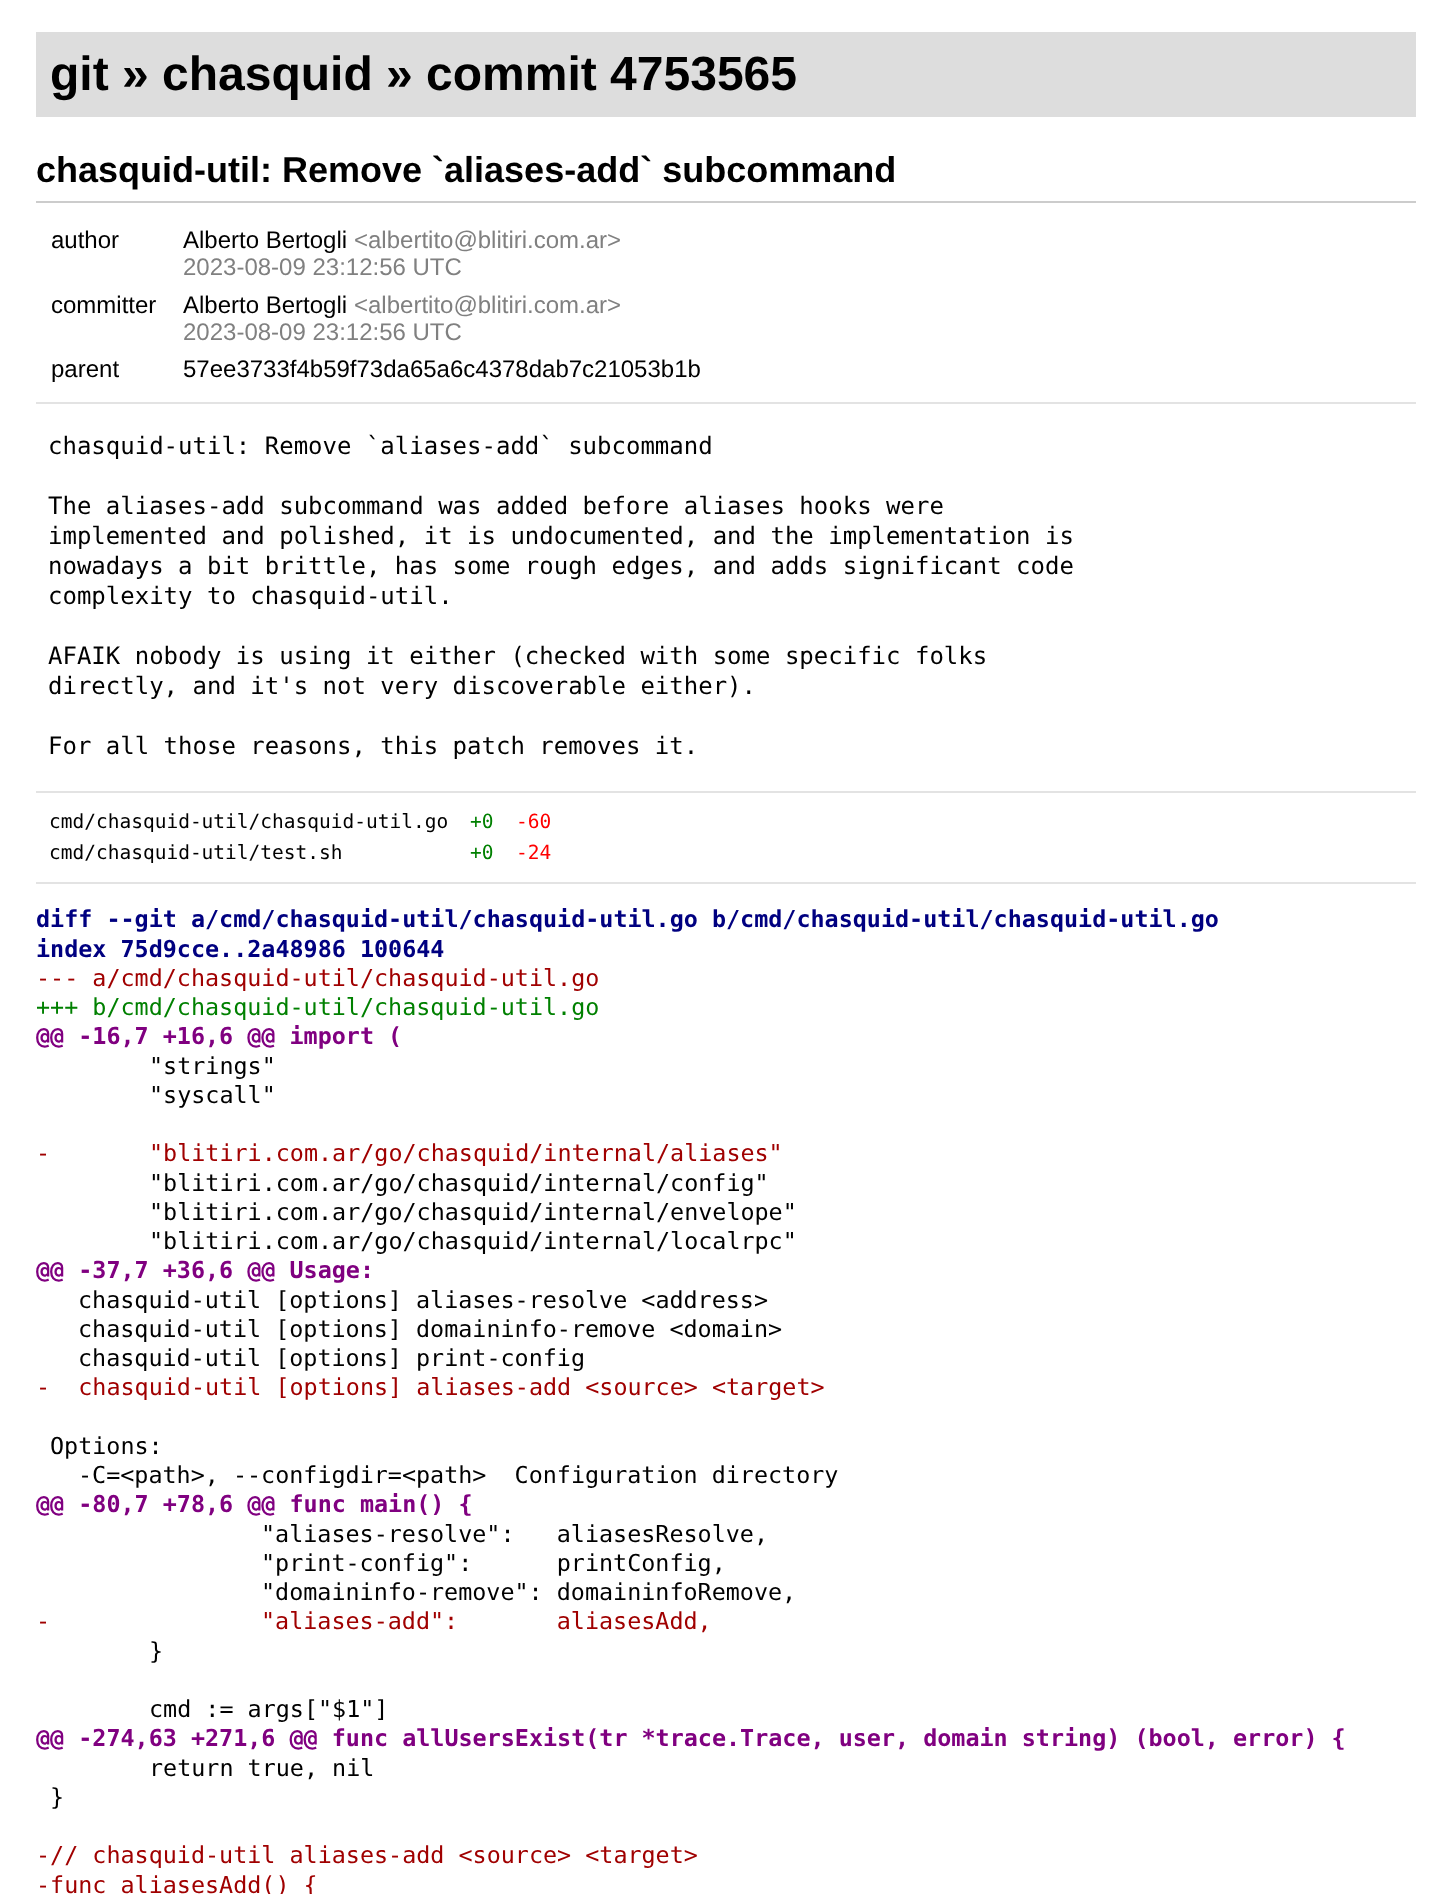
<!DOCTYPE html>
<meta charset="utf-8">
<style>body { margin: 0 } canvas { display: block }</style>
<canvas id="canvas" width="1452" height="1894"></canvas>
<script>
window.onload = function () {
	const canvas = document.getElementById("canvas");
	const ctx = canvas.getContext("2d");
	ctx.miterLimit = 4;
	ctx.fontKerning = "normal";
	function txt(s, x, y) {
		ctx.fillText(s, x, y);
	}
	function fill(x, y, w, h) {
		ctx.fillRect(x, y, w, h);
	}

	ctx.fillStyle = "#FFFFFF";
	fill(0, 0, 1452, 1894);
	ctx.fillStyle = "#DDDDDD";
	fill(36, 32, 1380, 85);
	ctx.fillStyle = "#CCCCCC";
	fill(36, 201, 1380, 2);
	ctx.fillStyle = "#E3E3E3";
	fill(36, 402, 1380, 2);
	fill(36, 791, 1380, 2);
	fill(36, 882, 1380, 2);
	ctx.font = "bold 48px Liberation Sans";
	ctx.fillStyle = "#000000";
	txt("git » chasquid » commit 4753565", 50, 90);
	ctx.font = "bold 36px Liberation Sans";
	txt("chasquid-util: Remove `aliases-add` subcommand", 36, 182);
	ctx.font = "24px Liberation Sans";
	txt("author", 51, 248);
	txt("Alberto Bertogli", 183, 248);
	ctx.fillStyle = "#808080";
	txt("<albertito@blitiri.com.ar>", 354, 248);
	txt("2023-08-09 23:12:56 UTC", 183, 275);
	ctx.fillStyle = "#000000";
	txt("committer", 51, 313);
	txt("Alberto Bertogli", 183, 313);
	ctx.fillStyle = "#808080";
	txt("<albertito@blitiri.com.ar>", 354, 313);
	txt("2023-08-09 23:12:56 UTC", 183, 340);
	ctx.fillStyle = "#000000";
	txt("parent", 51, 377);
	txt("57ee3733f4b59f73da65a6c4378dab7c21053b1b", 183, 377);
	ctx.font = "24px DejaVu Sans Mono";
	txt("chasquid-util: Remove `aliases-add` subcommand", 48, 454);
	txt("The aliases-add subcommand was added before aliases hooks were", 48, 514);
	txt("implemented and polished, it is undocumented, and the implementation is", 48, 544);
	txt("nowadays a bit brittle, has some rough edges, and adds significant code", 48, 574);
	txt("complexity to chasquid-util.", 48, 604);
	txt("AFAIK nobody is using it either (checked with some specific folks", 48, 664);
	txt("directly, and it's not very discoverable either).", 48, 694);
	txt("For all those reasons, this patch removes it.", 48, 754);
	ctx.font = "19.5px DejaVu Sans Mono";
	txt("cmd/chasquid-util/chasquid-util.go", 49, 828);
	ctx.fillStyle = "#008000";
	txt("+0", 470, 828);
	ctx.fillStyle = "#FF0000";
	txt("-60", 516, 828);
	ctx.fillStyle = "#000000";
	txt("cmd/chasquid-util/test.sh", 49, 859);
	ctx.fillStyle = "#008000";
	txt("+0", 470, 859);
	ctx.fillStyle = "#FF0000";
	txt("-24", 516, 859);
	ctx.font = "bold 23.4px DejaVu Sans Mono";
	ctx.fillStyle = "#000080";
	txt("diff --git a/cmd/chasquid-util/chasquid-util.go b/cmd/chasquid-util/chasquid-util.go", 36, 927);
	txt("index 75d9cce..2a48986 100644", 36, 957);
	ctx.font = "23.4px DejaVu Sans Mono";
	ctx.fillStyle = "#A00000";
	txt("--- a/cmd/chasquid-util/chasquid-util.go", 36, 986);
	ctx.fillStyle = "#008000";
	txt("+++ b/cmd/chasquid-util/chasquid-util.go", 36, 1015);
	ctx.font = "bold 23.4px DejaVu Sans Mono";
	ctx.fillStyle = "#800080";
	txt("@@ -16,7 +16,6 @@ import (", 36, 1044);
	ctx.font = "23.4px DejaVu Sans Mono";
	ctx.fillStyle = "#000000";
	txt("\"strings\"", 149, 1074);
	txt("\"syscall\"", 149, 1103);
	ctx.fillStyle = "#A00000";
	txt("-", 36, 1161);
	txt("\"blitiri.com.ar/go/chasquid/internal/aliases\"", 149, 1161);
	ctx.fillStyle = "#000000";
	txt("\"blitiri.com.ar/go/chasquid/internal/config\"", 149, 1191);
	txt("\"blitiri.com.ar/go/chasquid/internal/envelope\"", 149, 1220);
	txt("\"blitiri.com.ar/go/chasquid/internal/localrpc\"", 149, 1249);
	ctx.font = "bold 23.4px DejaVu Sans Mono";
	ctx.fillStyle = "#800080";
	txt("@@ -37,7 +36,6 @@ Usage:", 36, 1278);
	ctx.font = "23.4px DejaVu Sans Mono";
	ctx.fillStyle = "#000000";
	txt("chasquid-util [options] aliases-resolve <address>", 78, 1308);
	txt("chasquid-util [options] domaininfo-remove <domain>", 78, 1337);
	txt("chasquid-util [options] print-config", 78, 1366);
	ctx.fillStyle = "#A00000";
	txt("-  chasquid-util [options] aliases-add <source> <target>", 36, 1395);
	ctx.fillStyle = "#000000";
	txt("Options:", 50, 1454);
	txt("-C=<path>, --configdir=<path>  Configuration directory", 78, 1483);
	ctx.font = "bold 23.4px DejaVu Sans Mono";
	ctx.fillStyle = "#800080";
	txt("@@ -80,7 +78,6 @@ func main() {", 36, 1512);
	ctx.font = "23.4px DejaVu Sans Mono";
	ctx.fillStyle = "#000000";
	txt("\"aliases-resolve\":   aliasesResolve,", 261, 1542);
	txt("\"print-config\":      printConfig,", 261, 1571);
	txt("\"domaininfo-remove\": domaininfoRemove,", 261, 1600);
	ctx.fillStyle = "#A00000";
	txt("-", 36, 1629);
	txt("\"aliases-add\":       aliasesAdd,", 261, 1629);
	ctx.fillStyle = "#000000";
	txt("}", 149, 1659);
	txt("cmd := args[\"$1\"]", 149, 1717);
	ctx.font = "bold 23.4px DejaVu Sans Mono";
	ctx.fillStyle = "#800080";
	txt("@@ -274,63 +271,6 @@ func allUsersExist(tr *trace.Trace, user, domain string) (bool, error) {", 36, 1746);
	ctx.font = "23.4px DejaVu Sans Mono";
	ctx.fillStyle = "#000000";
	txt("return true, nil", 149, 1776);
	txt("}", 50, 1805);
	ctx.fillStyle = "#A00000";
	txt("-// chasquid-util aliases-add <source> <target>", 36, 1863);
	txt("-func aliasesAdd() {", 36, 1893);
};
</script>
